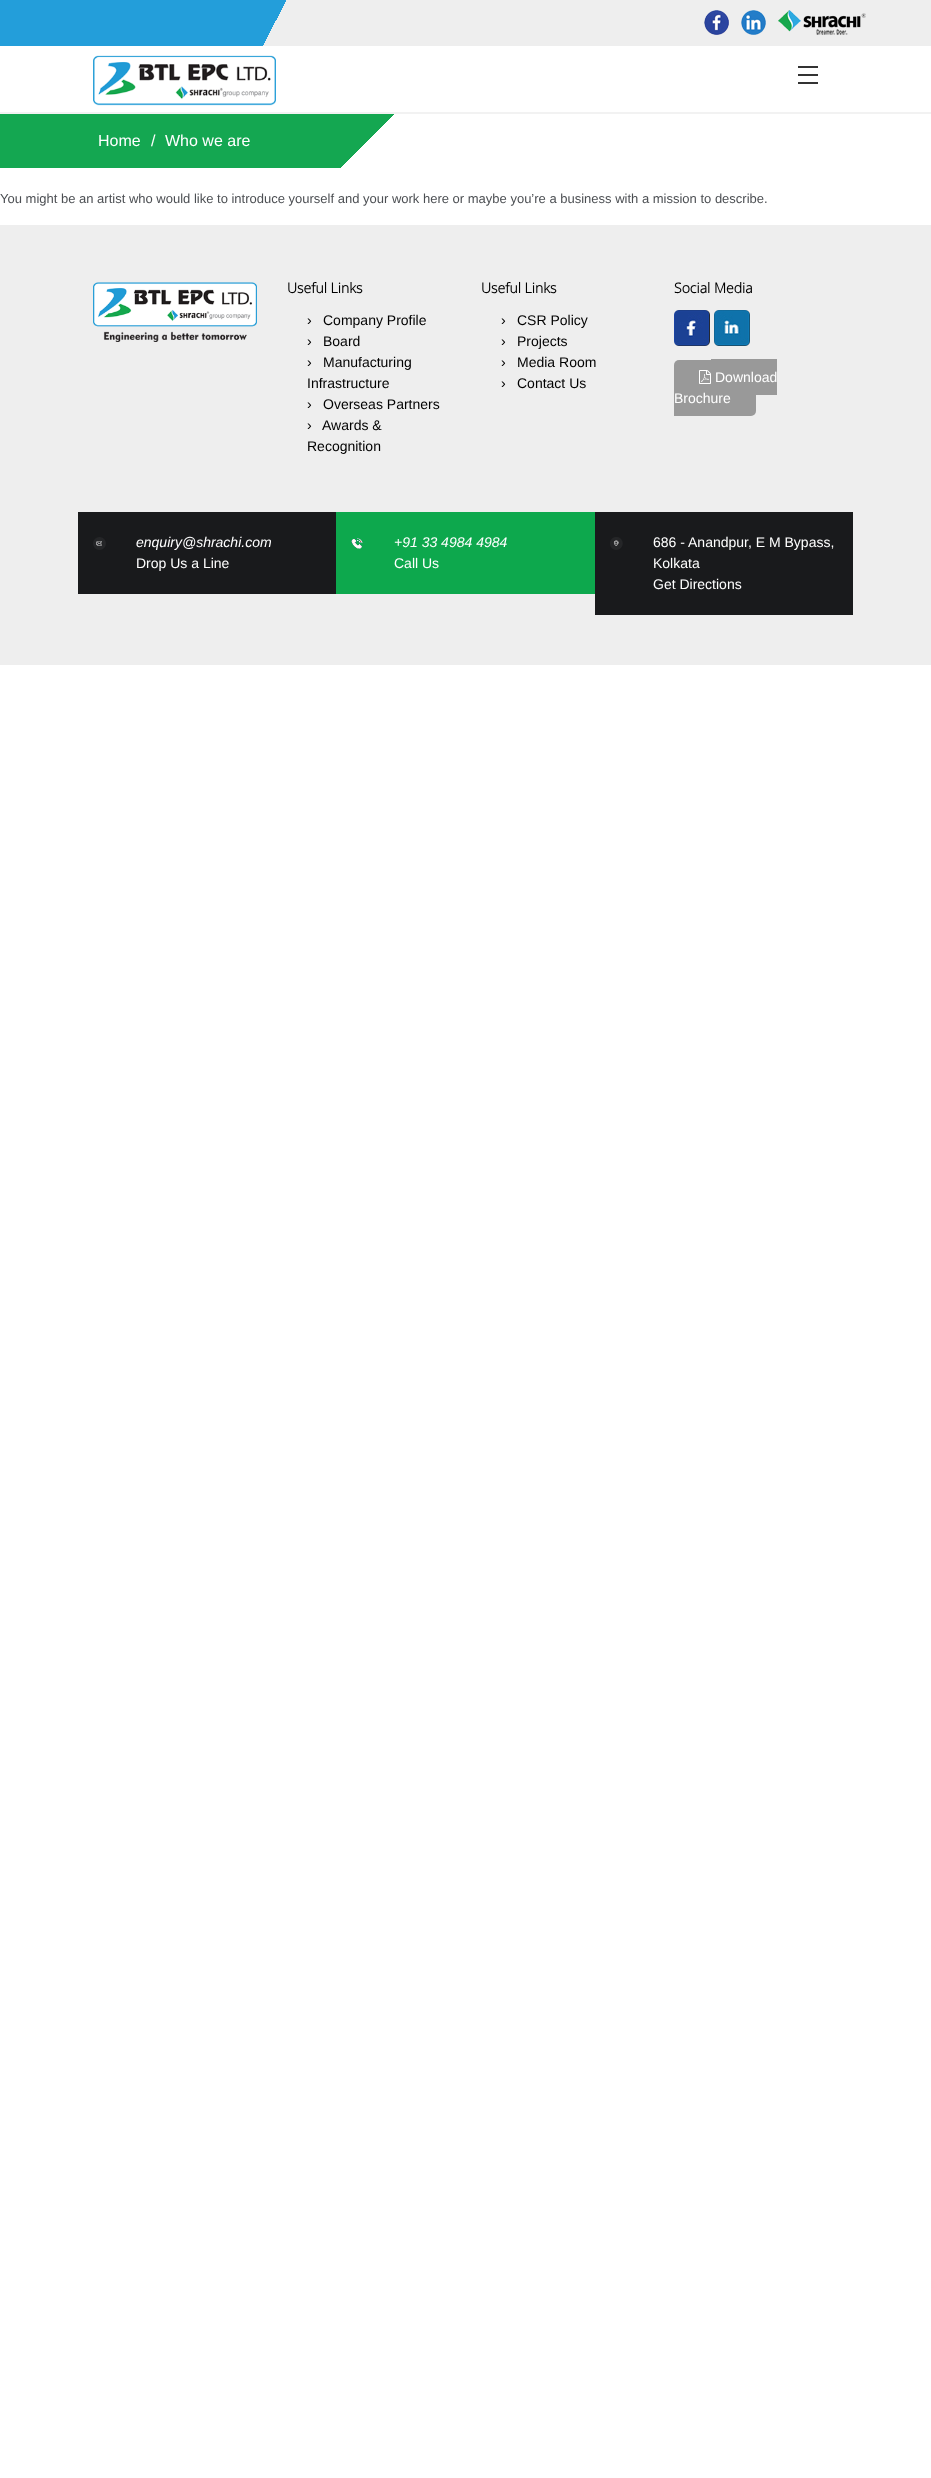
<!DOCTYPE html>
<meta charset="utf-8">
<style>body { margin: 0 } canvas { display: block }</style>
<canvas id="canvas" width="931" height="2478"></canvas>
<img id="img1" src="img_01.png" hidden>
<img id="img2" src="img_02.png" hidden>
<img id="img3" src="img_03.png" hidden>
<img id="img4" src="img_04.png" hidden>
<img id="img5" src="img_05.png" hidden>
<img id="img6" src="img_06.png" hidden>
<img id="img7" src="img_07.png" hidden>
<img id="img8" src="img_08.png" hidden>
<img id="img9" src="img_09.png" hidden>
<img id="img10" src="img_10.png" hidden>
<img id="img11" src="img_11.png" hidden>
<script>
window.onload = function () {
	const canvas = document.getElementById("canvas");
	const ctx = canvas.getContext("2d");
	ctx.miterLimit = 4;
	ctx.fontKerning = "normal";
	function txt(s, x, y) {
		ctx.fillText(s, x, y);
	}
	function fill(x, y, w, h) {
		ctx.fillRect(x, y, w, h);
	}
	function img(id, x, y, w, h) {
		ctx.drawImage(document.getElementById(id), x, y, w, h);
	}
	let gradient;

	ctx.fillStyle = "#FFFFFF";
	fill(0, 0, 931, 2478);
	gradient = ctx.createLinearGradient(87, -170, 844, 216);
	gradient.addColorStop(0.3, "#239EDA");
	gradient.addColorStop(0.3, "#EEEEEE");
	ctx.fillStyle = gradient;
	fill(0, 0, 931, 46);
	img("img1", 704, 10, 25, 25);
	img("img2", 741, 10, 25, 25);
	img("img3", 778, 10, 88, 25);
	ctx.fillStyle = "#F2F2F2";
	fill(0, 112, 931, 2);
	img("img4", 93, 55, 183, 51);
	ctx.fillStyle = "#333333";
	fill(798, 66, 20, 2);
	fill(798, 74, 20, 2);
	fill(798, 82, 20, 2);
	gradient = ctx.createLinearGradient(219, -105, 712, 387);
	gradient.addColorStop(0.4, "#14A751");
	gradient.addColorStop(0.4, "#FFFFFF");
	ctx.fillStyle = gradient;
	fill(0, 114, 394, 54);
	ctx.fillStyle = "#EEEEEE";
	fill(0, 225, 931, 440);
	img("img5", 93, 282, 164, 60);
	img("img6", 674, 310, 36, 36);
	img("img7", 714, 310, 36, 36);
	ctx.fillStyle = "#999999";
	ctx.beginPath();
	ctx.roundRect(674, 360, 37, 34, [5, 0, 0, 5]);
	ctx.fill();
	fill(711, 359, 66, 36);
	ctx.beginPath();
	ctx.roundRect(674, 380, 82, 36, [0, 5, 5, 0]);
	ctx.fill();
	img("img8", 699, 370, 12, 14);
	ctx.fillStyle = "#191A1C";
	fill(78, 512, 258, 82);
	img("img9", 93, 537, 13, 13);
	ctx.fillStyle = "#0DA84D";
	fill(336, 512, 259, 82);
	img("img10", 351, 538, 12, 11);
	ctx.fillStyle = "#191A1C";
	fill(595, 512, 258, 103);
	img("img11", 610, 537, 13, 13);
	ctx.font = "16px Liberation Sans";
	ctx.fillStyle = "#FFFFFF";
	txt("Home", 98, 146);
	txt("/", 151, 146);
	txt("Who we are", 165, 146);
	ctx.font = "13px Liberation Sans";
	ctx.fillStyle = "#4C4F53";
	txt("You might be an artist who would like to introduce yourself and your work here or maybe you’re a business with a mission to describe.", 0, 203);
	ctx.font = "bold 14px Open Sans";
	ctx.fillStyle = "#000000";
	txt("Useful Links", 287, 293);
	ctx.font = "14px Liberation Sans";
	txt("›", 307, 325);
	txt("Company Profile", 323, 325);
	txt("›", 307, 346);
	txt("Board", 323, 346);
	txt("›", 307, 367);
	txt("Manufacturing", 323, 367);
	txt("Infrastructure", 307, 388);
	txt("›", 307, 409);
	txt("Overseas Partners", 323, 409);
	txt("›", 307, 430);
	txt("Awards &", 322, 430);
	txt("Recognition", 307, 451);
	ctx.font = "bold 14px Open Sans";
	txt("Useful Links", 481, 293);
	ctx.font = "14px Liberation Sans";
	txt("›", 501, 325);
	txt("CSR Policy", 517, 325);
	txt("›", 501, 346);
	txt("Projects", 517, 346);
	txt("›", 501, 367);
	txt("Media Room", 517, 367);
	txt("›", 501, 388);
	txt("Contact Us", 517, 388);
	ctx.font = "bold 14px Open Sans";
	txt("Social Media", 674, 293);
	ctx.font = "14px Liberation Sans";
	ctx.fillStyle = "#FFFFFF";
	txt("Download", 715, 382);
	txt("Brochure", 674, 403);
	ctx.font = "italic 14px Liberation Sans";
	txt("enquiry@shrachi.com", 136, 547);
	ctx.font = "14px Liberation Sans";
	txt("Drop Us a Line", 136, 568);
	ctx.font = "italic 14px Liberation Sans";
	txt("+91 33 4984 4984", 394, 547);
	ctx.font = "14px Liberation Sans";
	txt("Call Us", 394, 568);
	txt("686 - Anandpur, E M Bypass,", 653, 547);
	txt("Kolkata", 653, 568);
	txt("Get Directions", 653, 589);
};
</script>
